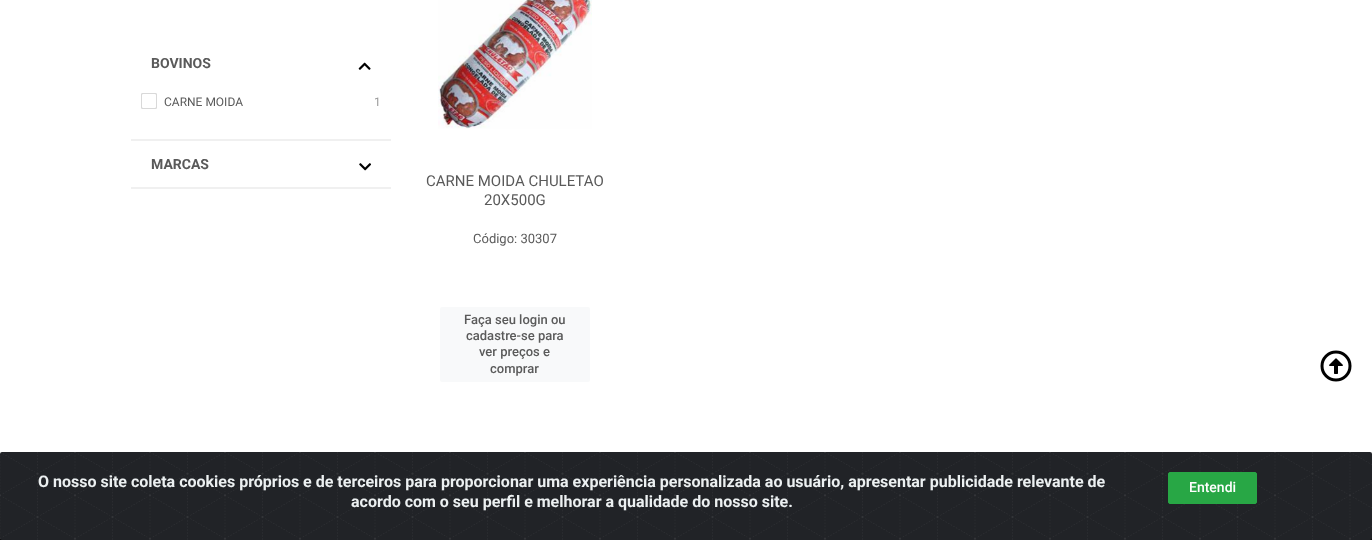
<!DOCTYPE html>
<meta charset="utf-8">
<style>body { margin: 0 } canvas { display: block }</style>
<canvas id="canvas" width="1372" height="540"></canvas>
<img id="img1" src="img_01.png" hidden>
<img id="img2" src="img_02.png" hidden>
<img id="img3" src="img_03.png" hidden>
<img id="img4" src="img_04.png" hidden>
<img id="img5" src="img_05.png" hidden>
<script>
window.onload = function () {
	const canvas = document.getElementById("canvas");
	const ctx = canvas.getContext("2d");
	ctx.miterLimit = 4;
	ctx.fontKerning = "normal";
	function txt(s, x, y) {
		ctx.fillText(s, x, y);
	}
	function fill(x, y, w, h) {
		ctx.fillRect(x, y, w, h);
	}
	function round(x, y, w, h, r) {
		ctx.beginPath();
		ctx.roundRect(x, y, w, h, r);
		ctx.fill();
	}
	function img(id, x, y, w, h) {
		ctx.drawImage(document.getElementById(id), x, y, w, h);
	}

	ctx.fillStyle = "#FFFFFF";
	fill(0, 0, 1372, 540);
	ctx.fillStyle = "#F0F0F0";
	fill(131, 139, 260, 2);
	img("img1", 358, 62, 13, 8);
	ctx.beginPath();
	ctx.roundRect(141.5, 93.5, 15, 15, 0.5);
	ctx.strokeStyle = "#D9D9D9";
	ctx.stroke();
	ctx.beginPath();
	ctx.roundRect(141.5, 93.5, 15, 15, 1.5);
	ctx.stroke();
	fill(131, 187, 260, 2);
	img("img2", 359, 163, 12, 8);
	img("img3", 438, 0, 154, 129);
	ctx.fillStyle = "#F8F9FA";
	round(440, 307, 150, 75, 2);
	ctx.fillStyle = "#000000";
	fill(0, 538, 1372, 2);
	img("img4", 0, 452, 1372, 88);
	ctx.fillStyle = "#28A745";
	ctx.beginPath();
	ctx.roundRect(1168.5, 472.5, 88, 31, 1.5);
	ctx.fill();
	ctx.strokeStyle = "#28A745";
	ctx.stroke();
	img("img5", 1320, 350, 32, 32);
	ctx.font = "bold 14px Roboto";
	ctx.fillStyle = "#5A5A5A";
	txt("BOVINOS", 151, 68);
	ctx.font = "12px Roboto";
	txt("CARNE MOIDA", 164, 106);
	ctx.fillStyle = "#999999";
	txt("1", 374, 106);
	ctx.font = "bold 14px Roboto";
	ctx.fillStyle = "#5A5A5A";
	txt("MARCAS", 151, 169);
	ctx.font = "15px Roboto";
	txt("CARNE MOIDA CHULETAO", 426, 186);
	txt("20X500G", 484, 205);
	ctx.font = "13px Roboto";
	txt("Código: 30307", 473, 243);
	ctx.font = "500 13px Roboto";
	txt("Faça seu login ou", 464, 324);
	txt("cadastre-se para", 466, 340);
	txt("ver preços e", 479, 356);
	txt("comprar", 490, 373);
	ctx.font = "bold 16px Roboto";
	ctx.fillStyle = "#ECF0F1";
	txt("O nosso site coleta cookies próprios e de terceiros para proporcionar uma experiência personalizada ao usuário, apresentar publicidade relevante de", 38, 487);
	txt("acordo com o seu perfil e melhorar a qualidade do nosso site.", 351, 507);
	ctx.font = "500 14px Roboto";
	ctx.fillStyle = "#FFFFFF";
	txt("Entendi", 1189, 492);
};
</script>
